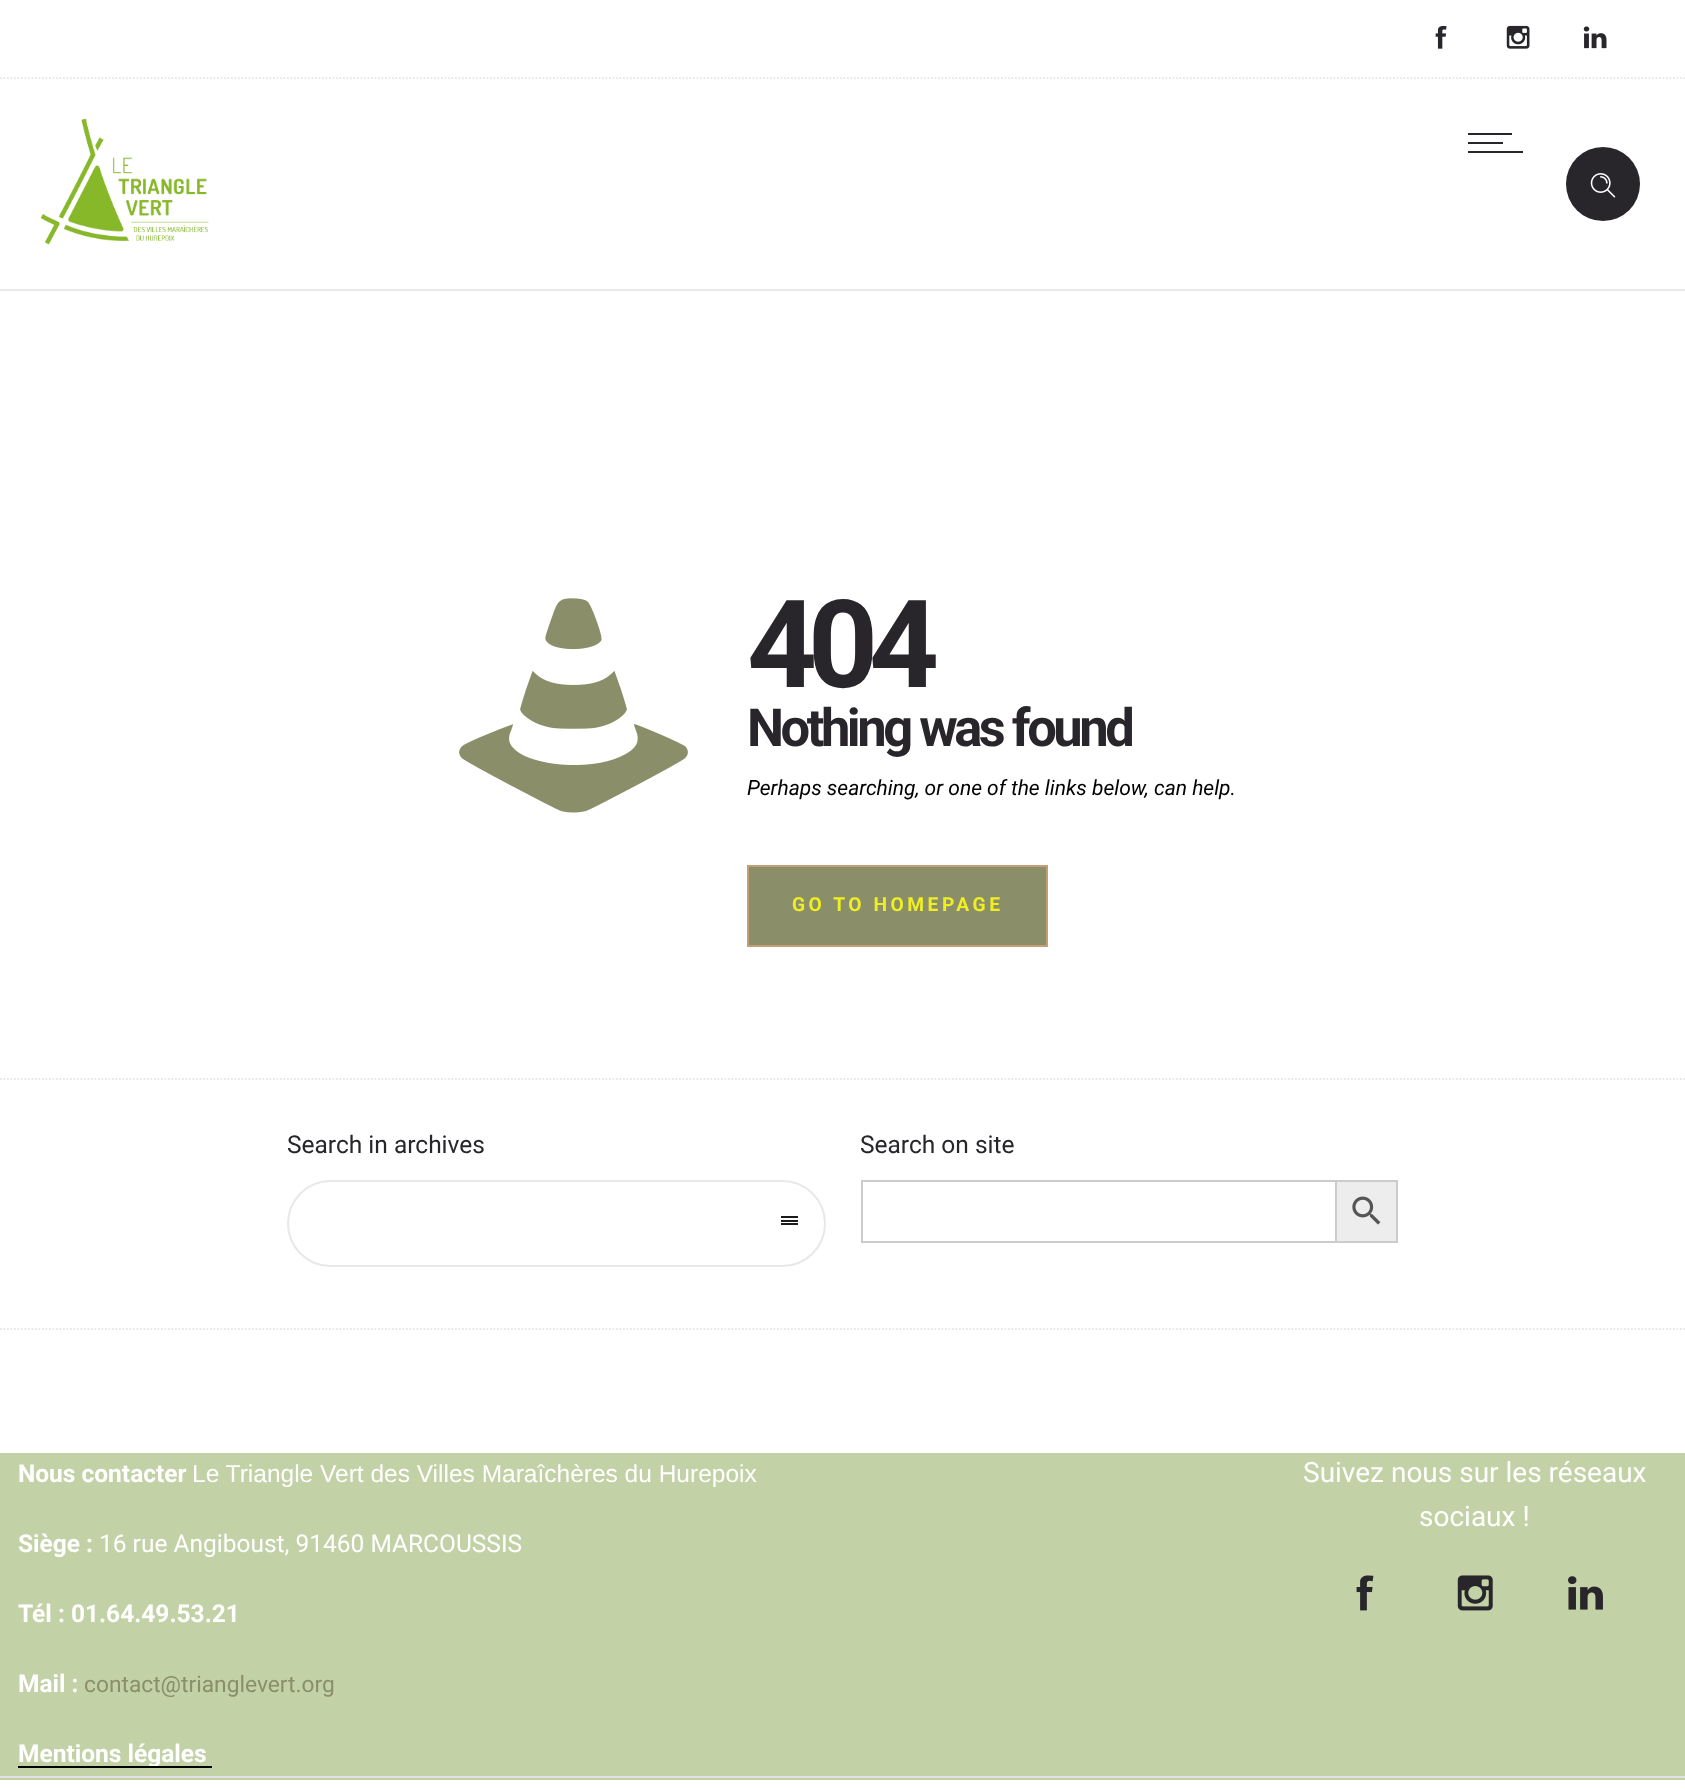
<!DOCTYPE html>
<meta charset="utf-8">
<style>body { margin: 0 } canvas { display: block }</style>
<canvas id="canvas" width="1685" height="1789"></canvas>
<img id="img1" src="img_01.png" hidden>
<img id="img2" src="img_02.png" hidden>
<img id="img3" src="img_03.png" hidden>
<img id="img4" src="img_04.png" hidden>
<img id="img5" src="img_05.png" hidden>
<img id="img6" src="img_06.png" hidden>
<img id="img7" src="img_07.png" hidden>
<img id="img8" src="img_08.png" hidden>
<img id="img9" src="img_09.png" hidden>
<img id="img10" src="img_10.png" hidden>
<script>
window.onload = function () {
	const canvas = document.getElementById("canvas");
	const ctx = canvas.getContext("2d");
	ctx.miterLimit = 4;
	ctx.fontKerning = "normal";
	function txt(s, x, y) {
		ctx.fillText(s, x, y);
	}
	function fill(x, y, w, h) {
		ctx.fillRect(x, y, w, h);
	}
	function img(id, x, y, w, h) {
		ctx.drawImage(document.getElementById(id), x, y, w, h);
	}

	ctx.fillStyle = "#FFFFFF";
	fill(0, 0, 1685, 1789);
	ctx.fillStyle = "#EAE9EA";
	fill(0, 289, 1685, 2);
	ctx.beginPath();
	ctx.moveTo(0, 78);
	ctx.lineTo(1685, 78);
	ctx.strokeStyle = "#EAE9EA";
	ctx.lineWidth = 1.8;
	ctx.setLineDash([1.75, 1.75]);
	ctx.stroke();
	img("img1", 1435, 25, 12, 24);
	img("img2", 1506, 25, 24, 24);
	img("img3", 1583, 26, 24, 23);
	img("img4", 40, 118, 169, 131);
	ctx.fillStyle = "#28262B";
	fill(1468, 133, 44, 2);
	fill(1468, 142, 35, 2);
	fill(1468, 151, 55, 2);
	ctx.beginPath();
	ctx.arc(1603, 184, 37, 0, Math.PI * 2);
	ctx.fill();
	img("img5", 1590, 173, 26, 25);
	img("img6", 459, 598, 229, 215);
	ctx.fillStyle = "#8A8F6A";
	ctx.beginPath();
	ctx.rect(748, 866, 299, 80);
	ctx.fill();
	ctx.strokeStyle = "#C39F76";
	ctx.lineWidth = 2;
	ctx.setLineDash([]);
	ctx.stroke();
	ctx.beginPath();
	ctx.moveTo(0, 1079);
	ctx.lineTo(1685, 1079);
	ctx.strokeStyle = "#E8E8E8";
	ctx.lineWidth = 1.8;
	ctx.setLineDash([1.75, 1.75]);
	ctx.stroke();
	ctx.beginPath();
	ctx.moveTo(0, 1329);
	ctx.lineTo(1685, 1329);
	ctx.stroke();
	ctx.beginPath();
	ctx.roundRect(288, 1181, 537, 85, 42.5);
	ctx.lineWidth = 2;
	ctx.setLineDash([]);
	ctx.stroke();
	ctx.fillStyle = "#1B1B1B";
	fill(781, 1223, 17, 2);
	fill(781, 1216, 17, 2);
	fill(781, 1220, 17, 2);
	ctx.fillStyle = "#CCCCCC";
	fill(861, 1180, 474, 2);
	fill(861, 1241, 474, 2);
	fill(861, 1180, 2, 63);
	ctx.fillStyle = "#EDEDED";
	ctx.beginPath();
	ctx.rect(1336, 1181, 61, 61);
	ctx.fill();
	ctx.strokeStyle = "#CCCCCC";
	ctx.stroke();
	img("img7", 1352, 1196, 29, 29);
	ctx.fillStyle = "#C2D2A6";
	fill(0, 1453, 1685, 327);
	img("img8", 1356, 1575, 18, 36);
	img("img9", 1457, 1575, 36, 36);
	img("img10", 1568, 1576, 35, 34);
	ctx.fillStyle = "#E2E2E2";
	fill(0, 1776, 1685, 2);
	ctx.letterSpacing = "-9px";
	ctx.font = "bold 122px Roboto";
	ctx.fillStyle = "#28262B";
	txt("404", 747, 687);
	ctx.letterSpacing = "-3.5px";
	ctx.font = "bold 52.5px Roboto";
	txt("Nothing was found", 747, 746);
	ctx.letterSpacing = "0px";
	ctx.font = "italic 21px Roboto";
	ctx.fillStyle = "#000000";
	txt("Perhaps searching, or one of the links below, can help.", 747, 795);
	ctx.letterSpacing = "3.5px";
	ctx.font = "bold 19.25px Roboto";
	ctx.fillStyle = "#EEEE22";
	txt("GO TO HOMEPAGE", 792, 911);
	ctx.letterSpacing = "0px";
	ctx.font = "24.5px Roboto";
	ctx.fillStyle = "#28262B";
	txt("Search in archives", 287, 1153);
	txt("Search on site", 860, 1153);
	ctx.font = "bold 24.5px Roboto";
	ctx.fillStyle = "#FFFFFF";
	txt("Nous contacter", 18, 1482);
	ctx.font = "24.5px Liberation Sans";
	txt("Le Triangle Vert des Villes Maraîchères du Hurepoix", 192, 1482);
	ctx.font = "bold 24.5px Roboto";
	txt("Siège :", 18, 1552);
	ctx.font = "24.5px Roboto";
	txt("16 rue Angiboust, 91460 MARCOUSSIS", 99, 1552);
	ctx.font = "bold 24.5px Roboto";
	txt("Tél : 01.64.49.53.21", 18, 1622);
	txt("Mail :", 18, 1692);
	ctx.font = "22.75px Roboto";
	ctx.fillStyle = "#8A8F6A";
	txt("contact@trianglevert.org", 84, 1692);
	ctx.font = "bold 24.5px Roboto";
	ctx.fillStyle = "#FFFFFF";
	txt("Mentions légales", 18, 1762);
	ctx.fillStyle = "#000000";
	fill(18, 1766, 194, 2);
	ctx.font = "28px Roboto";
	ctx.fillStyle = "#FFFFFF";
	txt("Suivez nous sur les réseaux", 1303, 1482);
	txt("sociaux !", 1419, 1526);
};
</script>
